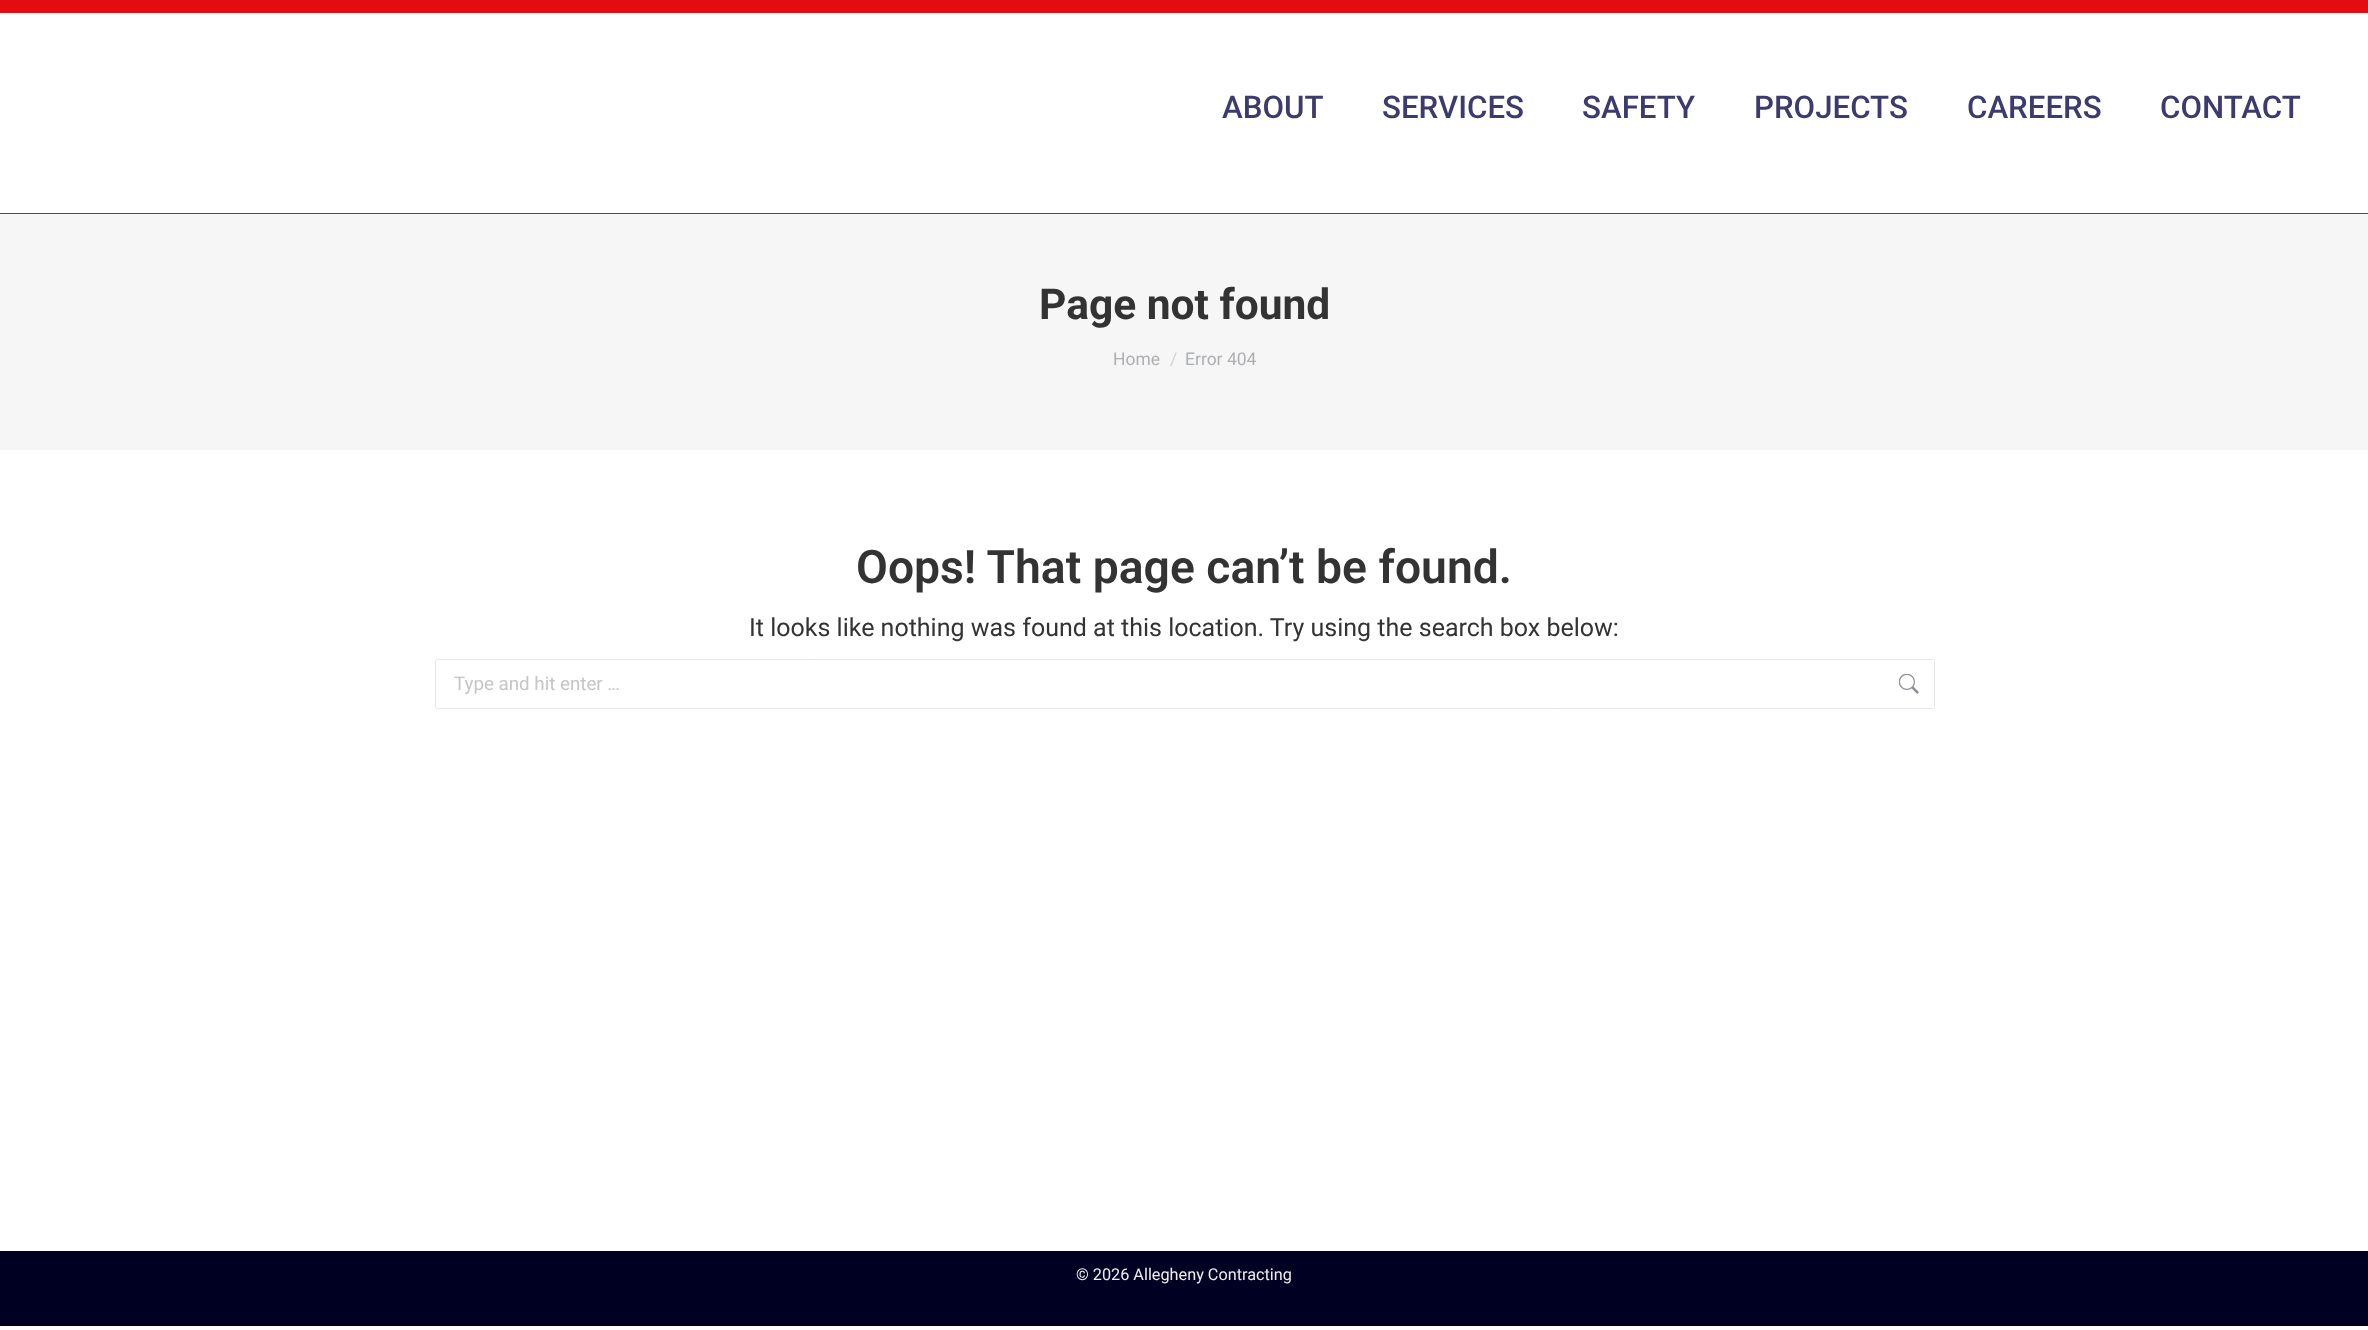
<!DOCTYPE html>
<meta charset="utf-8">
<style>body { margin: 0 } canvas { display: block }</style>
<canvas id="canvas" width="2368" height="1330"></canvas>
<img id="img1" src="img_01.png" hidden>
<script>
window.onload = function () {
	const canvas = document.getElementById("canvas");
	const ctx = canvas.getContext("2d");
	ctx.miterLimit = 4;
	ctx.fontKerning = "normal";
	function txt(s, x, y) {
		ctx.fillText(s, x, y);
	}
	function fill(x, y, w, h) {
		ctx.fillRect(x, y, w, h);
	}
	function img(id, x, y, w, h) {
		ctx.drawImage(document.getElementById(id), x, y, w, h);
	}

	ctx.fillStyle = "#FFFFFF";
	fill(0, 0, 2368, 1330);
	ctx.fillStyle = "#E30C11";
	fill(0, 213, 2368, 1);
	fill(0, 0, 2368, 13);
	ctx.fillStyle = "#F6F6F6";
	fill(0, 214, 2368, 236);
	ctx.beginPath();
	ctx.roundRect(435.5, 659.5, 1499, 49, 2);
	ctx.strokeStyle = "#E7E7E7";
	ctx.stroke();
	img("img1", 1899, 674, 20, 20);
	ctx.fillStyle = "#000022";
	fill(0, 1251, 2368, 75);
	ctx.font = "500 31.25px Roboto";
	ctx.fillStyle = "#3C3B6E";
	txt("ABOUT", 1222, 118);
	txt("SERVICES", 1382, 118);
	txt("SAFETY", 1582, 118);
	txt("PROJECTS", 1754, 118);
	txt("CAREERS", 1967, 118);
	txt("CONTACT", 2160, 118);
	ctx.font = "bold 42.5px Roboto";
	ctx.fillStyle = "#333333";
	txt("Page not found", 1039, 319);
	ctx.font = "17.5px Roboto";
	ctx.fillStyle = "#ADAFB3";
	txt("Home", 1113, 365);
	ctx.fillStyle = "#D2D3D5";
	txt("/", 1170, 365);
	ctx.fillStyle = "#ADAFB3";
	txt("Error 404", 1185, 365);
	ctx.font = "600 46.25px Roboto";
	ctx.fillStyle = "#333333";
	txt("Oops! That page can’t be found.", 856, 583);
	ctx.font = "25px Roboto";
	txt("It looks like nothing was found at this location. Try using the search box below:", 749, 636);
	ctx.font = "18.75px Roboto";
	ctx.fillStyle = "#C4C5C9";
	txt("Type and hit enter …", 454, 690);
	ctx.font = "16.25px Roboto";
	ctx.fillStyle = "#EEEEEE";
	txt("© 2026 Allegheny Contracting", 1076, 1280);
};
</script>
